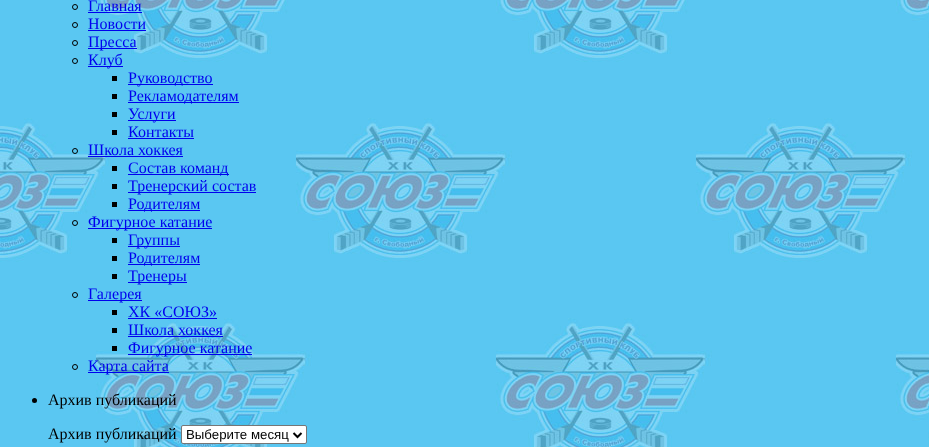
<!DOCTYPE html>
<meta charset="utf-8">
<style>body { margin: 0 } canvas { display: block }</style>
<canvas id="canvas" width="929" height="447"></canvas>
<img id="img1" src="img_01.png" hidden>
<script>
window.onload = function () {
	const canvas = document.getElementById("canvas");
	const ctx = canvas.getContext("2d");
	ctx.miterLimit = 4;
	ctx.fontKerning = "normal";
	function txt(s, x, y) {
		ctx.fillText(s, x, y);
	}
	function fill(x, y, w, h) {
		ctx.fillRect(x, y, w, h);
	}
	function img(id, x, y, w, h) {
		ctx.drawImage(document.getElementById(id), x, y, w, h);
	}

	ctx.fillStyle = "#FFFFFF";
	fill(0, 0, 929, 447);
	img("img1", 0, 0, 929, 447);
	ctx.beginPath();
	ctx.arc(75, 7, 2.5, 0, Math.PI * 2);
	ctx.strokeStyle = "#000000";
	ctx.stroke();
	ctx.fillStyle = "#0000EE";
	fill(88, 12, 54, 1);
	ctx.beginPath();
	ctx.arc(75, 25, 2.5, 0, Math.PI * 2);
	ctx.stroke();
	fill(88, 30, 58, 1);
	ctx.beginPath();
	ctx.arc(75, 43, 2.5, 0, Math.PI * 2);
	ctx.stroke();
	fill(88, 48, 49, 1);
	ctx.beginPath();
	ctx.arc(75, 61, 2.5, 0, Math.PI * 2);
	ctx.stroke();
	fill(88, 66, 35, 1);
	ctx.fillStyle = "#000000";
	fill(112, 76, 5, 5);
	ctx.fillStyle = "#0000EE";
	fill(128, 84, 85, 1);
	ctx.fillStyle = "#000000";
	fill(112, 94, 5, 5);
	ctx.fillStyle = "#0000EE";
	fill(128, 102, 111, 1);
	ctx.fillStyle = "#000000";
	fill(112, 112, 5, 5);
	ctx.fillStyle = "#0000EE";
	fill(128, 120, 48, 1);
	ctx.fillStyle = "#000000";
	fill(112, 130, 5, 5);
	ctx.fillStyle = "#0000EE";
	fill(128, 138, 66, 1);
	ctx.beginPath();
	ctx.arc(75, 151, 2.5, 0, Math.PI * 2);
	ctx.stroke();
	fill(88, 156, 95, 1);
	ctx.fillStyle = "#000000";
	fill(112, 166, 5, 5);
	ctx.fillStyle = "#0000EE";
	fill(128, 174, 101, 1);
	ctx.fillStyle = "#000000";
	fill(112, 184, 5, 5);
	ctx.fillStyle = "#0000EE";
	fill(128, 192, 128, 1);
	ctx.fillStyle = "#000000";
	fill(112, 202, 5, 5);
	ctx.fillStyle = "#0000EE";
	fill(128, 210, 72, 1);
	ctx.beginPath();
	ctx.arc(75, 223, 2.5, 0, Math.PI * 2);
	ctx.stroke();
	fill(88, 228, 124, 1);
	ctx.fillStyle = "#000000";
	fill(112, 238, 5, 5);
	ctx.fillStyle = "#0000EE";
	fill(128, 246, 52, 1);
	ctx.fillStyle = "#000000";
	fill(112, 256, 5, 5);
	ctx.fillStyle = "#0000EE";
	fill(128, 264, 72, 1);
	ctx.fillStyle = "#000000";
	fill(112, 274, 5, 5);
	ctx.fillStyle = "#0000EE";
	fill(128, 282, 59, 1);
	ctx.beginPath();
	ctx.arc(75, 295, 2.5, 0, Math.PI * 2);
	ctx.stroke();
	fill(88, 300, 54, 1);
	ctx.fillStyle = "#000000";
	fill(112, 310, 5, 5);
	ctx.fillStyle = "#0000EE";
	fill(128, 318, 89, 1);
	ctx.fillStyle = "#000000";
	fill(112, 328, 5, 5);
	ctx.fillStyle = "#0000EE";
	fill(128, 336, 95, 1);
	ctx.fillStyle = "#000000";
	fill(112, 346, 5, 5);
	ctx.fillStyle = "#0000EE";
	fill(128, 354, 124, 1);
	ctx.beginPath();
	ctx.arc(75, 367, 2.5, 0, Math.PI * 2);
	ctx.stroke();
	fill(88, 372, 81, 1);
	ctx.fillStyle = "#000000";
	ctx.beginPath();
	ctx.arc(34.5, 400.5, 2.5, 0, Math.PI * 2);
	ctx.fill();
	ctx.fillStyle = "#FFFFFF";
	ctx.beginPath();
	ctx.roundRect(181.5, 425.5, 125, 18, 1.5);
	ctx.fill();
	ctx.strokeStyle = "#767676";
	ctx.stroke();
	ctx.beginPath();
	ctx.moveTo(293.5, 433);
	ctx.lineTo(297.5, 437);
	ctx.lineTo(301.5, 433);
	ctx.strokeStyle = "#000000";
	ctx.lineWidth = 2;
	ctx.stroke();
	ctx.font = "16px Liberation Serif";
	ctx.fillStyle = "#0000EE";
	txt("Главная", 88, 11);
	txt("Новости", 88, 29);
	txt("Пресса", 88, 47);
	txt("Клуб", 88, 65);
	txt("Руководство", 128, 83);
	txt("Рекламодателям", 128, 101);
	txt("Услуги", 128, 119);
	txt("Контакты", 128, 137);
	txt("Школа хоккея", 88, 155);
	txt("Состав команд", 128, 173);
	txt("Тренерский состав", 128, 191);
	txt("Родителям", 128, 209);
	txt("Фигурное катание", 88, 227);
	txt("Группы", 128, 245);
	txt("Родителям", 128, 263);
	txt("Тренеры", 128, 281);
	txt("Галерея", 88, 299);
	txt("ХК «СОЮЗ»", 128, 317);
	txt("Школа хоккея", 128, 335);
	txt("Фигурное катание", 128, 353);
	txt("Карта сайта", 88, 371);
	ctx.fillStyle = "#000000";
	txt("Архив публикаций", 48, 405);
	txt("Архив публикаций", 48, 439);
	ctx.font = "13.25px Liberation Sans";
	txt("Выберите месяц", 186, 439);
};
</script>
